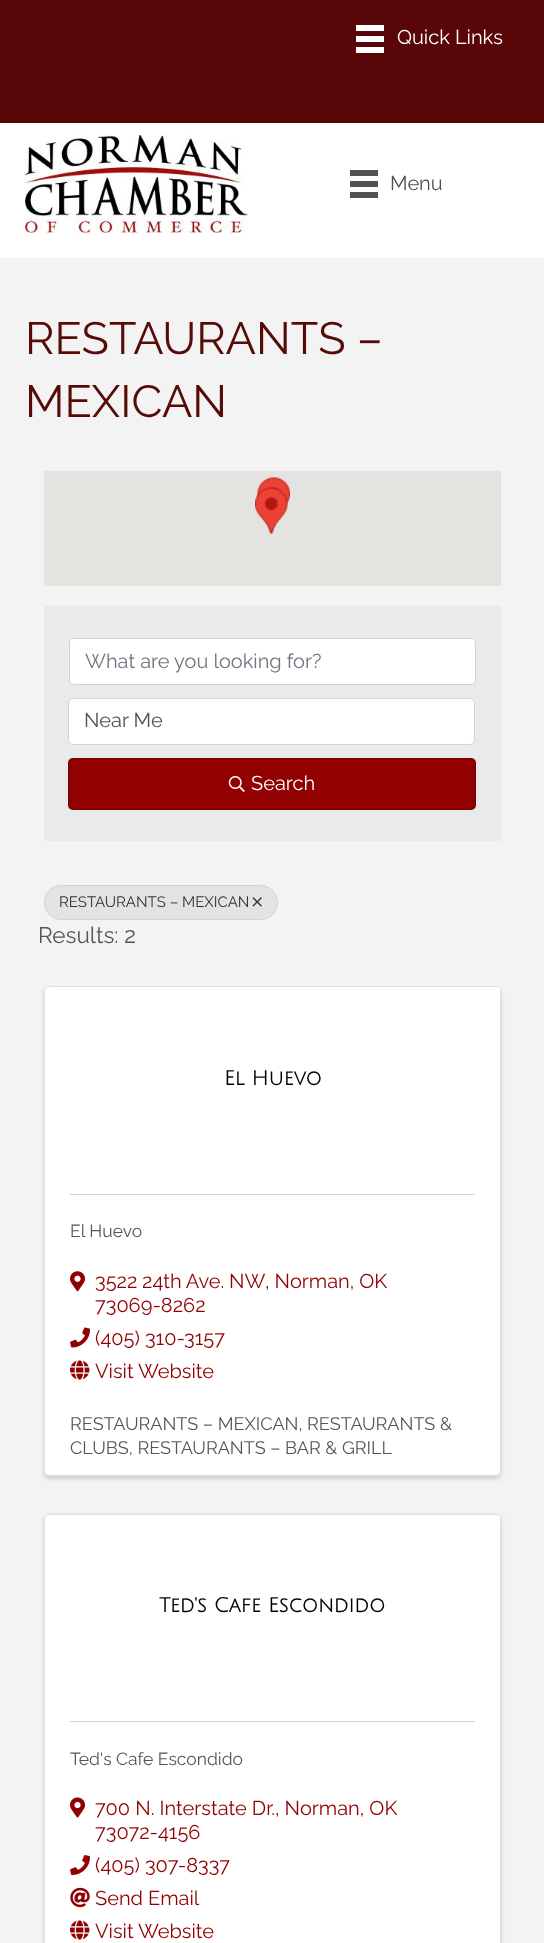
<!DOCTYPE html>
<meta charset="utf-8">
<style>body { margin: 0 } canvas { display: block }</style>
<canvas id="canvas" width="544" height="1943"></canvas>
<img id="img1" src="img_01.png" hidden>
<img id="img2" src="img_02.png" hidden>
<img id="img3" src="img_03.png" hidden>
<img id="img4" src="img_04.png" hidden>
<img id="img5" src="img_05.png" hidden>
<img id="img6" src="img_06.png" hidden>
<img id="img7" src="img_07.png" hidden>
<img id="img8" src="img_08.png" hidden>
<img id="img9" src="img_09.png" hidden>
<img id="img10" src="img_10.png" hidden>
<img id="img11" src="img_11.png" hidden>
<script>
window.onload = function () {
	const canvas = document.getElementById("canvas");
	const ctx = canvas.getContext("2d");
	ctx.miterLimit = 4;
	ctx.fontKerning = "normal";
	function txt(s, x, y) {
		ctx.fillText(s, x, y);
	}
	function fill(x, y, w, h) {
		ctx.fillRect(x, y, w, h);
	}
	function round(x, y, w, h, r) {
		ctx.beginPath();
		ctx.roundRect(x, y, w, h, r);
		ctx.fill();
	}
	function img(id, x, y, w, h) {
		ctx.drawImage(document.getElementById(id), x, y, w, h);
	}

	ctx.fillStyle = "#FFFFFF";
	fill(0, 0, 544, 1943);
	ctx.fillStyle = "#580608";
	fill(0, 0, 544, 123);
	ctx.fillStyle = "#FFFFFF";
	fill(356, 25, 28, 6);
	fill(356, 36, 28, 6);
	fill(356, 47, 28, 6);
	img("img1", 25, 135, 223, 98);
	ctx.fillStyle = "#4C5256";
	fill(350, 170, 28, 6);
	fill(350, 181, 28, 6);
	fill(350, 192, 28, 6);
	ctx.fillStyle = "#F3F3F3";
	fill(0, 258, 544, 1685);
	ctx.fillStyle = "#E5E3DF";
	fill(44, 471, 457, 115);
	img("img2", 257, 477, 33, 47);
	img("img3", 255, 487, 33, 47);
	ctx.fillStyle = "#EAEAEA";
	fill(44, 606, 457, 235);
	ctx.fillStyle = "#FFFFFF";
	ctx.beginPath();
	ctx.roundRect(69.5, 638.5, 406, 46, 4.5);
	ctx.fill();
	ctx.strokeStyle = "#CED4DA";
	ctx.stroke();
	ctx.beginPath();
	ctx.roundRect(68.5, 698.5, 406, 46, 4.5);
	ctx.fill();
	ctx.stroke();
	ctx.fillStyle = "#910101";
	round(68, 758, 408, 52, 5);
	ctx.beginPath();
	ctx.roundRect(68.5, 758.5, 407, 51, 4.5);
	ctx.strokeStyle = "rgba(0, 0, 0, 0.2)";
	ctx.stroke();
	img("img4", 228, 776, 17, 16);
	ctx.fillStyle = "#E3E3E3";
	round(44, 885, 234, 35, 17.5);
	ctx.beginPath();
	ctx.roundRect(44.5, 885.5, 233, 34, 17);
	ctx.strokeStyle = "rgba(0, 0, 0, 0.07)";
	ctx.stroke();
	img("img5", 252, 897, 10, 10);
	ctx.fillStyle = "rgba(0, 0, 0, 0.15)";
	ctx.filter = "blur(2px)";
	ctx.beginPath();
	ctx.roundRect(44, 989, 457, 490, 5);
	ctx.fill();
	ctx.filter = "none";
	ctx.fillStyle = "#FFFFFF";
	round(44, 986, 457, 490, 5);
	ctx.beginPath();
	ctx.roundRect(44.5, 986.5, 456, 489, 4.5);
	ctx.strokeStyle = "rgba(0, 0, 0, 0.12)";
	ctx.stroke();
	ctx.fillStyle = "#D4D4D4";
	fill(70, 1194, 405, 1);
	img("img6", 70, 1271, 15, 21);
	img("img7", 70, 1327, 20, 21);
	img("img8", 70, 1360, 20, 20);
	ctx.fillStyle = "rgba(0, 0, 0, 0.15)";
	ctx.filter = "blur(2px)";
	ctx.beginPath();
	ctx.roundRect(44, 1516, 457, 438, 5);
	ctx.fill();
	ctx.filter = "none";
	ctx.fillStyle = "#FFFFFF";
	round(44, 1514, 457, 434, 5);
	ctx.beginPath();
	ctx.roundRect(44.5, 1514.5, 456, 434, 4.5);
	ctx.stroke();
	ctx.fillStyle = "#D4D4D4";
	fill(70, 1721, 405, 1);
	img("img9", 70, 1797, 15, 21);
	img("img10", 70, 1855, 20, 20);
	img("img11", 70, 1887, 20, 21);
	img("img8", 70, 1920, 20, 20);
	ctx.font = "20px Raleway";
	ctx.fillStyle = "#FFFFFF";
	txt("Quick Links", 397, 44);
	ctx.fillStyle = "#4C5256";
	txt("Menu", 390, 190);
	ctx.font = "45px Raleway";
	ctx.fillStyle = "#570B08";
	txt("RESTAURANTS –", 25, 354);
	txt("MEXICAN", 25, 417);
	ctx.font = "20px Raleway";
	ctx.fillStyle = "#6C757D";
	txt("What are you looking for?", 85, 668);
	ctx.fillStyle = "#4C5256";
	txt("Near Me", 84, 727);
	ctx.fillStyle = "#FFFFFF";
	txt("Search", 251, 790);
	ctx.font = "15px Raleway";
	ctx.fillStyle = "#333333";
	txt("RESTAURANTS – MEXICAN", 59, 907);
	ctx.font = "22.5px Raleway";
	ctx.fillStyle = "#555555";
	txt("Results: 2", 38, 943);
	ctx.font = "bold 20px Julius Sans One";
	ctx.fillStyle = "#000000";
	txt("El Huevo", 224, 1085);
	ctx.font = "17.5px Raleway";
	ctx.fillStyle = "#555555";
	txt("El Huevo", 70, 1237);
	ctx.wordSpacing = "-0.5px";
	ctx.font = "20px Raleway";
	ctx.fillStyle = "#910101";
	txt("3522 24th Ave. NW", 95, 1288);
	ctx.wordSpacing = "0px";
	txt(", Norman, OK", 265, 1288);
	txt("73069-8262", 95, 1312);
	txt("(405) 310-3157", 95, 1345);
	txt("Visit Website", 95, 1378);
	ctx.font = "18px Raleway";
	ctx.fillStyle = "#555555";
	txt("RESTAURANTS – MEXICAN, RESTAURANTS &", 70, 1430);
	txt("CLUBS, RESTAURANTS – BAR & GRILL", 70, 1454);
	ctx.font = "bold 20px Julius Sans One";
	ctx.fillStyle = "#000000";
	txt("Ted's Cafe Escondido", 159, 1612);
	ctx.font = "17.5px Raleway";
	ctx.fillStyle = "#555555";
	txt("Ted's Cafe Escondido", 70, 1765);
	ctx.font = "20px Raleway";
	ctx.fillStyle = "#910101";
	txt("700 N. Interstate Dr., Norman, OK", 95, 1815);
	txt("73072-4156", 95, 1839);
	txt("(405) 307-8337", 95, 1872);
	txt("Send Email", 95, 1905);
	txt("Visit Website", 95, 1938);
};
</script>
